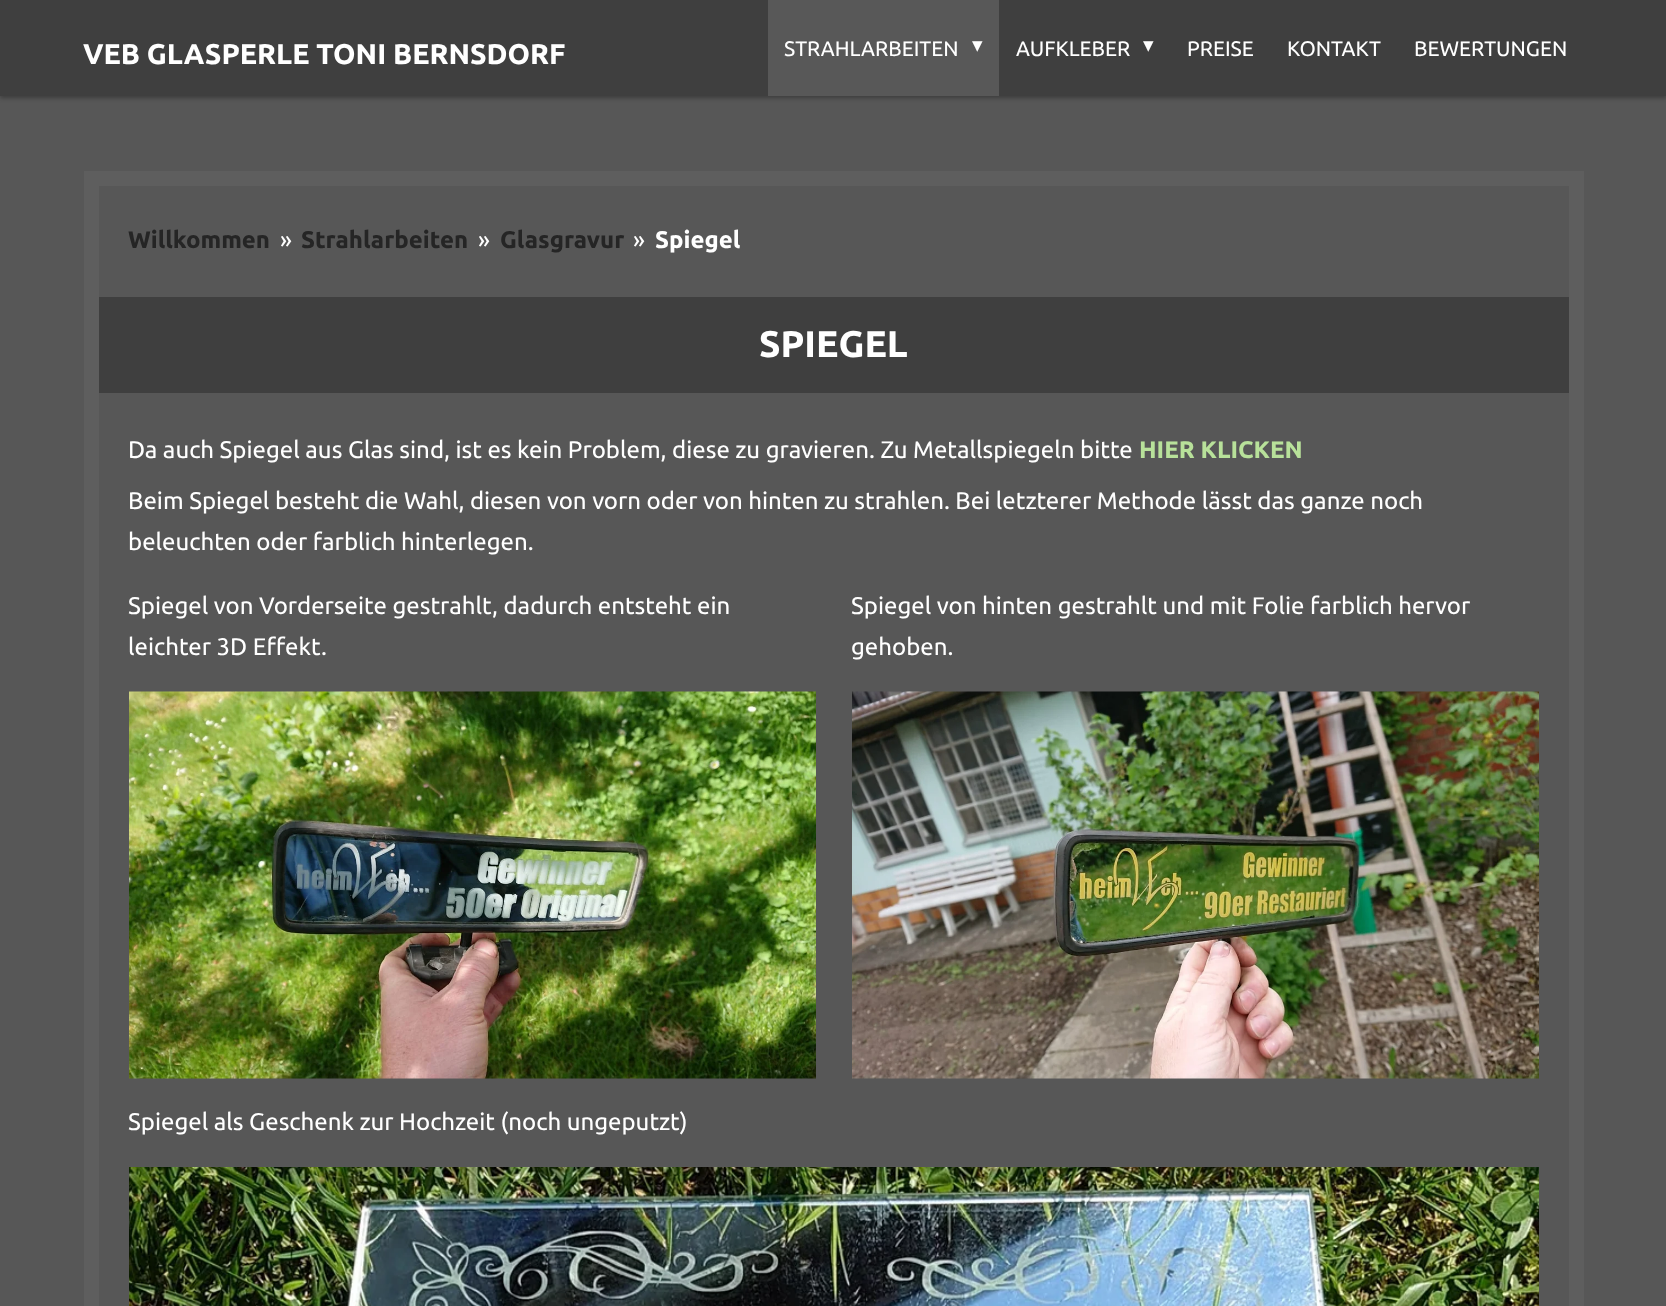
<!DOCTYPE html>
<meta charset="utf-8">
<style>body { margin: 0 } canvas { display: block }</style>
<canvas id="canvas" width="1666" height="1306"></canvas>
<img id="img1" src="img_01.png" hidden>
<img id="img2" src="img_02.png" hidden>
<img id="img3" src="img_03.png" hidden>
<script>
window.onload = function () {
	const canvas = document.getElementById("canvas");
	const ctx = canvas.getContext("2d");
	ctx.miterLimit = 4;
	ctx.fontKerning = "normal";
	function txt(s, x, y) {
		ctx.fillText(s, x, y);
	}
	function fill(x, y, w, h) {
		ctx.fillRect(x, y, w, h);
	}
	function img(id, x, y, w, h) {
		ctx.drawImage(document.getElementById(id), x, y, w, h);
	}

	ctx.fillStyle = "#575757";
	fill(0, 0, 1666, 1306);
	ctx.fillStyle = "rgba(0, 0, 0, 0.3)";
	ctx.filter = "blur(2px)";
	ctx.beginPath();
	ctx.rect(0, 2, 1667, 96);
	ctx.fill();
	ctx.filter = "none";
	ctx.fillStyle = "#3F3F3F";
	fill(0, 0, 1666, 96);
	ctx.fillStyle = "#585858";
	fill(768, 0, 231, 96);
	ctx.fillStyle = "#5E5E5E";
	fill(84, 171, 1500, 1135);
	ctx.fillStyle = "#575757";
	fill(99, 186, 1470, 1120);
	ctx.fillStyle = "#3F3F3F";
	fill(99, 297, 1470, 96);
	img("img1", 129, 691, 687, 388);
	img("img2", 852, 691, 687, 388);
	img("img3", 129, 1167, 1410, 139);
	ctx.font = "bold 28.5px Ubuntu";
	ctx.fillStyle = "#FFFFFF";
	txt("VEB GLASPERLE TONI BERNSDORF", 83, 64);
	ctx.font = "21px Ubuntu";
	txt("STRAHLARBEITEN", 784, 56);
	ctx.font = "21px DejaVu Sans";
	txt("▾", 972, 52);
	ctx.font = "21px Ubuntu";
	txt("AUFKLEBER", 1016, 56);
	ctx.font = "21px DejaVu Sans";
	txt("▾", 1143, 52);
	ctx.font = "21px Ubuntu";
	txt("PREISE", 1187, 56);
	txt("KONTAKT", 1287, 56);
	txt("BEWERTUNGEN", 1414, 56);
	ctx.font = "bold 24px Ubuntu";
	ctx.fillStyle = "#252525";
	txt("Willkommen", 128, 248);
	ctx.font = "24px Ubuntu";
	ctx.fillStyle = "#FFFFFF";
	txt("»", 280, 248);
	ctx.font = "bold 24px Ubuntu";
	ctx.fillStyle = "#252525";
	txt("Strahlarbeiten", 301, 248);
	ctx.font = "24px Ubuntu";
	ctx.fillStyle = "#FFFFFF";
	txt("»", 478, 248);
	ctx.font = "bold 24px Ubuntu";
	ctx.fillStyle = "#252525";
	txt("Glasgravur", 500, 248);
	ctx.font = "24px Ubuntu";
	ctx.fillStyle = "#FFFFFF";
	txt("»", 633, 248);
	ctx.font = "bold 24px Ubuntu";
	txt("Spiegel", 655, 248);
	ctx.font = "bold 37px Ubuntu";
	txt("SPIEGEL", 759, 357);
	ctx.font = "24px Ubuntu";
	txt("Da auch Spiegel aus Glas sind, ist es kein Problem, diese zu gravieren. Zu Metallspiegeln bitte", 128, 458);
	ctx.font = "bold 24px Ubuntu";
	ctx.fillStyle = "#B8E19A";
	txt("HIER KLICKEN", 1139, 458);
	ctx.font = "24px Ubuntu";
	ctx.fillStyle = "#FFFFFF";
	txt("Beim Spiegel besteht die Wahl, diesen von vorn oder von hinten zu strahlen. Bei letzterer Methode lässt das ganze noch", 128, 509);
	txt("beleuchten oder farblich hinterlegen.", 128, 550);
	txt("Spiegel von Vorderseite gestrahlt, dadurch entsteht ein", 128, 614);
	txt("leichter 3D Effekt.", 128, 655);
	txt("Spiegel von hinten gestrahlt und mit Folie farblich hervor", 851, 614);
	txt("gehoben.", 851, 655);
	txt("Spiegel als Geschenk zur Hochzeit (noch ungeputzt)", 128, 1130);
};
</script>
